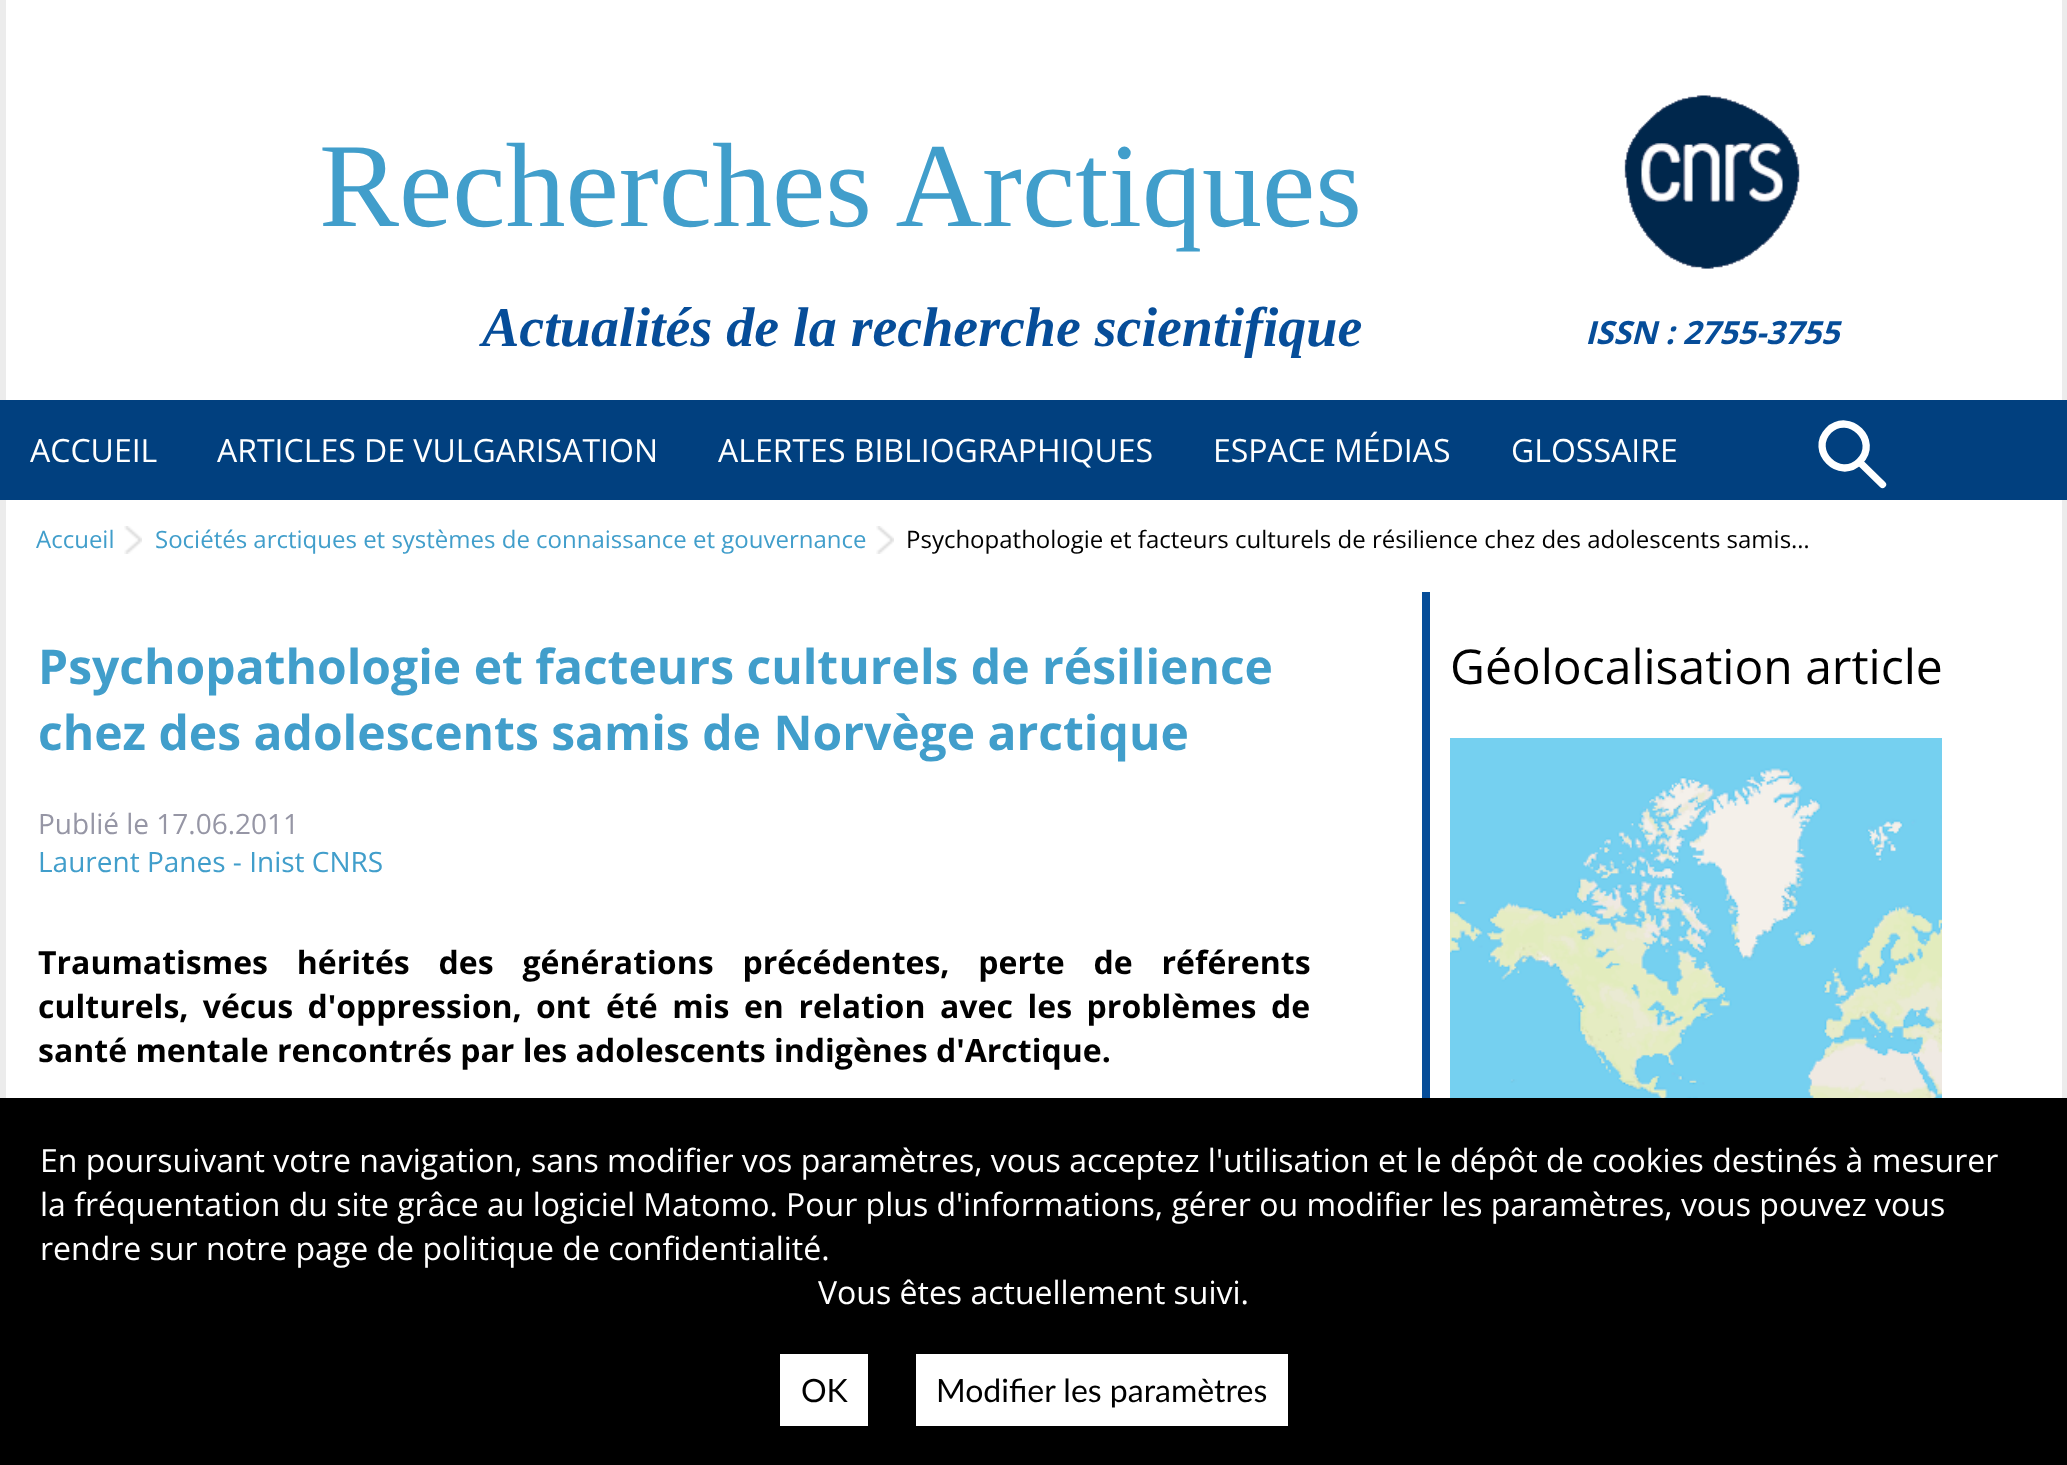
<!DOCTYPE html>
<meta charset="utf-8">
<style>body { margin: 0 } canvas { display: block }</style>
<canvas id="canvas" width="2067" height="1465"></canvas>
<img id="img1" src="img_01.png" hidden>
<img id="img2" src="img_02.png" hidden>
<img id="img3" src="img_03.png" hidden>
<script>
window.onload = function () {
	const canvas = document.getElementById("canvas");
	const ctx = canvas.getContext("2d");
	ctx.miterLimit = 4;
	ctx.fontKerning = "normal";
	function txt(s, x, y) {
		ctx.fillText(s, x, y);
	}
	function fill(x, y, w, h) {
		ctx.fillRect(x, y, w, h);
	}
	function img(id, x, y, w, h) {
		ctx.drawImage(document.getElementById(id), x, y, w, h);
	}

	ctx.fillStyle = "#FFFFFF";
	fill(0, 0, 2067, 1465);
	ctx.fillStyle = "#ECECEC";
	fill(2062, 0, 5, 400);
	fill(0, 0, 6, 400);
	img("img1", 1624, 95, 176, 174);
	ctx.fillStyle = "#01407F";
	fill(0, 400, 2067, 100);
	ctx.beginPath();
	ctx.moveTo(1828.5, 430.5);
	ctx.bezierCurveTo(1849, 410.5, 1880, 441, 1859.5, 461.5);
	ctx.bezierCurveTo(1839.5, 481.5, 1808.5, 451, 1828.5, 430.5);
	ctx.closePath();
	ctx.strokeStyle = "#FFFFFF";
	ctx.lineWidth = 7.3;
	ctx.lineCap = "round";
	ctx.stroke();
	ctx.beginPath();
	ctx.moveTo(1860, 462.5);
	ctx.lineTo(1882.5, 484.5);
	ctx.stroke();
	ctx.fillStyle = "#ECECEC";
	fill(2062, 500, 5, 598);
	fill(0, 500, 6, 598);
	img("img2", 124, 526, 18, 28);
	img("img2", 876, 526, 18, 28);
	ctx.fillStyle = "#064D99";
	fill(1422, 592, 8, 506);
	img("img3", 1450, 738, 492, 360);
	ctx.fillStyle = "#000000";
	fill(0, 1098, 2067, 367);
	ctx.fillStyle = "#FFFFFF";
	fill(780, 1354, 88, 72);
	fill(916, 1354, 372, 72);
	ctx.font = "120px Liberation Serif";
	ctx.fillStyle = "#419ECB";
	txt("Recherches Arctiques", 319, 226);
	ctx.font = "italic bold 56px Liberation Serif";
	ctx.fillStyle = "#064D99";
	txt("Actualités de la recherche scientifique", 482, 346);
	ctx.font = "italic bold 32px Open Sans";
	txt("ISSN : 2755-3755", 1585, 344);
	ctx.font = "32px Open Sans";
	ctx.fillStyle = "#FFFFFF";
	txt("ACCUEIL", 30, 462);
	txt("ARTICLES DE VULGARISATION", 217, 462);
	txt("ALERTES BIBLIOGRAPHIQUES", 718, 462);
	txt("ESPACE MÉDIAS", 1213, 462);
	txt("GLOSSAIRE", 1511, 462);
	ctx.font = "24px Open Sans";
	ctx.fillStyle = "#419ECB";
	txt("Accueil", 36, 548);
	txt("Sociétés arctiques et systèmes de connaissance et gouvernance", 155, 548);
	ctx.fillStyle = "#000000";
	txt("Psychopathologie et facteurs culturels de résilience chez des adolescents samis…", 906, 548);
	ctx.font = "bold 48px Open Sans";
	ctx.fillStyle = "#419ECB";
	txt("Psychopathologie et facteurs culturels de résilience", 38, 684);
	txt("chez des adolescents samis de Norvège arctique", 38, 750);
	ctx.font = "28px Open Sans";
	ctx.fillStyle = "#9696A5";
	txt("Publié le 17.06.2011", 38, 834);
	ctx.fillStyle = "#419ECB";
	txt("Laurent Panes - Inist CNRS", 38, 872);
	ctx.wordSpacing = "20.5px";
	ctx.font = "bold 32px Open Sans";
	ctx.fillStyle = "#000000";
	txt("Traumatismes hérités des générations précédentes, perte de référents", 38, 974);
	ctx.wordSpacing = "6px";
	txt("culturels, vécus d'oppression, ont", 38, 1018);
	ctx.wordSpacing = "6.25px";
	txt("été mis en relation avec les problèmes de", 606, 1018);
	ctx.wordSpacing = "0px";
	txt("santé mentale rencontrés par les adolescents indigènes d'Arctique.", 38, 1062);
	ctx.font = "48px Open Sans";
	txt("Géolocalisation article", 1450, 684);
	ctx.font = "32px Open Sans";
	ctx.fillStyle = "#FFFFFF";
	txt("En poursuivant votre navigation, sans modifier vos paramètres, vous acceptez l'utilisation et le dépôt de cookies destinés à mesurer", 40, 1172);
	txt("la fréquentation du site grâce au logiciel Matomo. Pour plus d'informations, gérer ou modifier les paramètres, vous pouvez vous", 40, 1216);
	txt("rendre sur notre page de politique de confidentialité.", 40, 1260);
	txt("Vous êtes actuellement suivi.", 818, 1304);
	ctx.font = "32px Lato";
	ctx.fillStyle = "#000000";
	txt("OK", 801, 1402);
	txt("Modifier les paramètres", 936, 1402);
};
</script>
